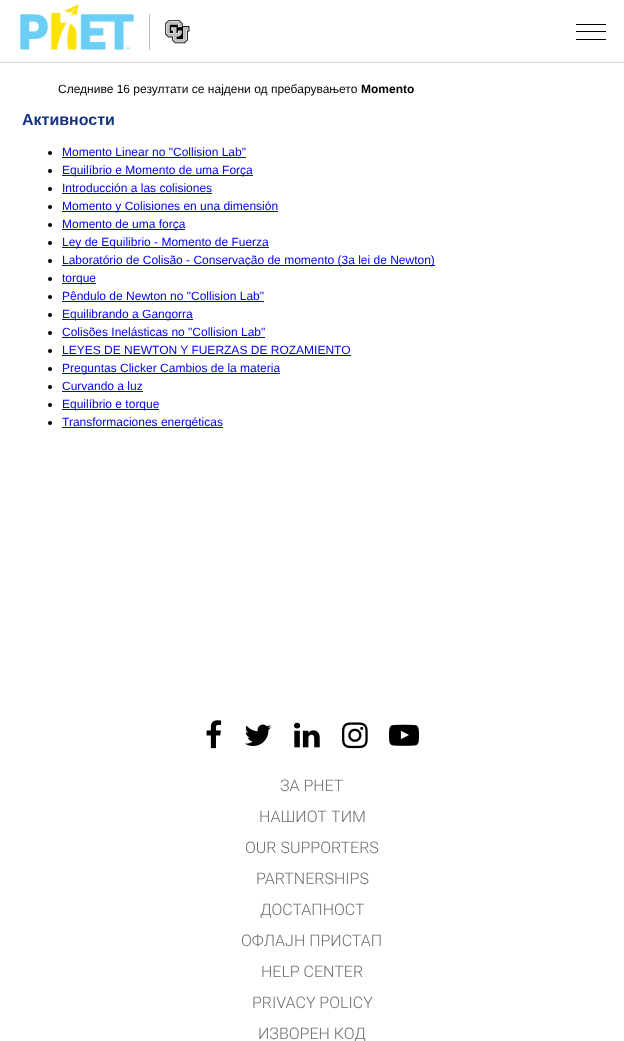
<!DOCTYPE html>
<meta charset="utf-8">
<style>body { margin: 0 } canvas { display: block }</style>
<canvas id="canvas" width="624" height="1041"></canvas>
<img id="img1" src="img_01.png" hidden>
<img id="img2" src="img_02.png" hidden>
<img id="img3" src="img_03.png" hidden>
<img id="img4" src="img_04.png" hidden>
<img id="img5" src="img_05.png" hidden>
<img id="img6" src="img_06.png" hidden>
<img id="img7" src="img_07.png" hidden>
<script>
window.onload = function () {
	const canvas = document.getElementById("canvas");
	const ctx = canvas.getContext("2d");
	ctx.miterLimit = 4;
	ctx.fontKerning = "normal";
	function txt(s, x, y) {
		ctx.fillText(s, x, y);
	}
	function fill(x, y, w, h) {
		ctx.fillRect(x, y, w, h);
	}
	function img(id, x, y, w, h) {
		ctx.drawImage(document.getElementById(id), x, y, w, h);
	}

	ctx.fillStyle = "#FFFFFF";
	fill(0, 0, 624, 1041);
	ctx.fillStyle = "#D3D3D3";
	fill(0, 62, 624, 1);
	img("img1", 20, 4, 114, 46);
	ctx.fillStyle = "#BBBBBB";
	fill(149, 14, 1, 36);
	img("img2", 165, 20, 25, 24);
	ctx.fillStyle = "#000000";
	fill(576, 24, 30, 1);
	fill(576, 31, 30, 1);
	fill(576, 39, 30, 1);
	ctx.beginPath();
	ctx.arc(50, 153, 2, 0, Math.PI * 2);
	ctx.fill();
	ctx.fillStyle = "#0000EE";
	fill(62, 157, 184, 1);
	ctx.fillStyle = "#000000";
	ctx.beginPath();
	ctx.arc(50, 171, 2, 0, Math.PI * 2);
	ctx.fill();
	ctx.fillStyle = "#0000EE";
	fill(62, 175, 191, 1);
	ctx.fillStyle = "#000000";
	ctx.beginPath();
	ctx.arc(50, 189, 2, 0, Math.PI * 2);
	ctx.fill();
	ctx.fillStyle = "#0000EE";
	fill(62, 193, 150, 1);
	ctx.fillStyle = "#000000";
	ctx.beginPath();
	ctx.arc(50, 207, 2, 0, Math.PI * 2);
	ctx.fill();
	ctx.fillStyle = "#0000EE";
	fill(62, 211, 216, 1);
	ctx.fillStyle = "#000000";
	ctx.beginPath();
	ctx.arc(50, 225, 2, 0, Math.PI * 2);
	ctx.fill();
	ctx.fillStyle = "#0000EE";
	fill(62, 229, 123, 1);
	ctx.fillStyle = "#000000";
	ctx.beginPath();
	ctx.arc(50, 243, 2, 0, Math.PI * 2);
	ctx.fill();
	ctx.fillStyle = "#0000EE";
	fill(62, 247, 207, 1);
	ctx.fillStyle = "#000000";
	ctx.beginPath();
	ctx.arc(50, 261, 2, 0, Math.PI * 2);
	ctx.fill();
	ctx.fillStyle = "#0000EE";
	fill(62, 265, 373, 1);
	ctx.fillStyle = "#000000";
	ctx.beginPath();
	ctx.arc(50, 279, 2, 0, Math.PI * 2);
	ctx.fill();
	ctx.fillStyle = "#0000EE";
	fill(62, 283, 34, 1);
	ctx.fillStyle = "#000000";
	ctx.beginPath();
	ctx.arc(50, 297, 2, 0, Math.PI * 2);
	ctx.fill();
	ctx.fillStyle = "#0000EE";
	fill(62, 301, 202, 1);
	ctx.fillStyle = "#000000";
	ctx.beginPath();
	ctx.arc(50, 315, 2, 0, Math.PI * 2);
	ctx.fill();
	ctx.fillStyle = "#0000EE";
	fill(62, 319, 131, 1);
	ctx.fillStyle = "#000000";
	ctx.beginPath();
	ctx.arc(50, 333, 2, 0, Math.PI * 2);
	ctx.fill();
	ctx.fillStyle = "#0000EE";
	fill(62, 337, 203, 1);
	ctx.fillStyle = "#000000";
	ctx.beginPath();
	ctx.arc(50, 351, 2, 0, Math.PI * 2);
	ctx.fill();
	ctx.fillStyle = "#0000EE";
	fill(62, 355, 289, 1);
	ctx.fillStyle = "#000000";
	ctx.beginPath();
	ctx.arc(50, 369, 2, 0, Math.PI * 2);
	ctx.fill();
	ctx.fillStyle = "#0000EE";
	fill(62, 373, 218, 1);
	ctx.fillStyle = "#000000";
	ctx.beginPath();
	ctx.arc(50, 387, 2, 0, Math.PI * 2);
	ctx.fill();
	ctx.fillStyle = "#0000EE";
	fill(62, 391, 81, 1);
	ctx.fillStyle = "#000000";
	ctx.beginPath();
	ctx.arc(50, 405, 2, 0, Math.PI * 2);
	ctx.fill();
	ctx.fillStyle = "#0000EE";
	fill(62, 409, 97, 1);
	ctx.fillStyle = "#000000";
	ctx.beginPath();
	ctx.arc(50, 423, 2, 0, Math.PI * 2);
	ctx.fill();
	ctx.fillStyle = "#0000EE";
	fill(62, 427, 161, 1);
	img("img3", 206, 720, 16, 29);
	img("img4", 245, 724, 26, 22);
	img("img5", 294, 722, 26, 26);
	img("img6", 342, 722, 26, 27);
	img("img7", 389, 724, 30, 22);
	ctx.font = "12px Liberation Sans";
	ctx.fillStyle = "#000000";
	txt("Следниве 16 резултати се најдени од пребарувањето", 58, 93);
	ctx.font = "bold 12px Liberation Sans";
	txt("Momento", 361, 93);
	ctx.font = "bold 16px Liberation Sans";
	ctx.fillStyle = "#15337F";
	txt("Активности", 22, 125);
	ctx.font = "12px Liberation Sans";
	ctx.fillStyle = "#0000EE";
	txt("Momento Linear no \"Collision Lab\"", 62, 156);
	txt("Equilíbrio e Momento de uma Força", 62, 174);
	txt("Introducción a las colisiones", 62, 192);
	txt("Momento y Colisiones en una dimensión", 62, 210);
	txt("Momento de uma força", 62, 228);
	txt("Ley de Equilibrio - Momento de Fuerza", 62, 246);
	txt("Laboratório de Colisão - Conservação de momento (3a lei de Newton)", 62, 264);
	txt("torque", 62, 282);
	txt("Pêndulo de Newton no \"Collision Lab\"", 62, 300);
	txt("Equilibrando a Gangorra", 62, 318);
	txt("Colisões Inelásticas no \"Collision Lab\"", 62, 336);
	txt("LEYES DE NEWTON Y FUERZAS DE ROZAMIENTO", 62, 354);
	txt("Preguntas Clicker Cambios de la materia", 62, 372);
	txt("Curvando a luz", 62, 390);
	txt("Equilíbrio e torque", 62, 408);
	txt("Transformaciones energéticas", 62, 426);
	ctx.font = "300 16px Roboto";
	ctx.fillStyle = "#6C6C6C";
	txt("ЗА PHET", 280, 791);
	ctx.wordSpacing = "1px";
	txt("НАШИОТ ТИМ", 259, 822);
	ctx.wordSpacing = "0px";
	txt("OUR SUPPORTERS", 245, 853);
	txt("PARTNERSHIPS", 256, 884);
	txt("ДОСТАПНОСТ", 260, 915);
	txt("ОФЛАЈН ПРИСТАП", 241, 946);
	txt("HELP CENTER", 261, 977);
	txt("PRIVACY POLICY", 252, 1008);
	txt("ИЗВОРЕН КОД", 258, 1039);
};
</script>
